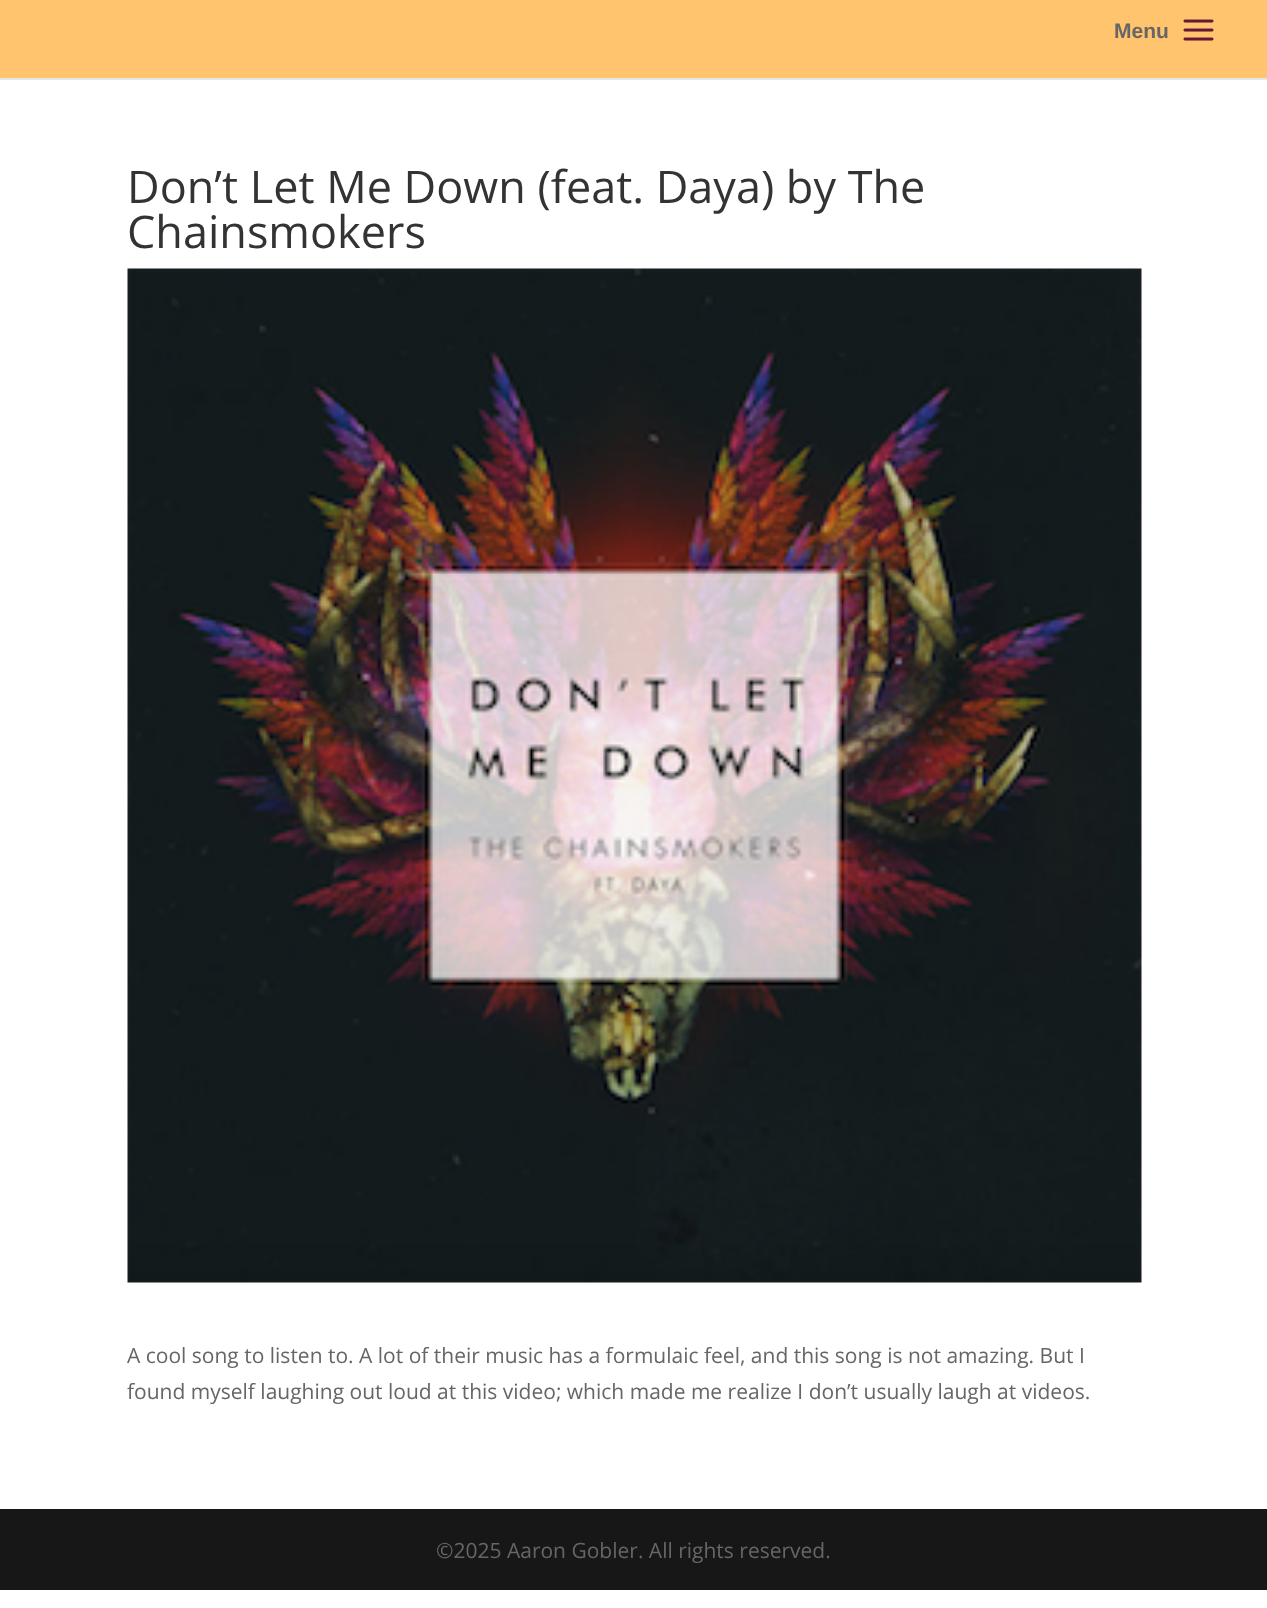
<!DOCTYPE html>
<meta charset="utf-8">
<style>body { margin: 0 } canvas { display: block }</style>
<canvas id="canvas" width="1267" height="1608"></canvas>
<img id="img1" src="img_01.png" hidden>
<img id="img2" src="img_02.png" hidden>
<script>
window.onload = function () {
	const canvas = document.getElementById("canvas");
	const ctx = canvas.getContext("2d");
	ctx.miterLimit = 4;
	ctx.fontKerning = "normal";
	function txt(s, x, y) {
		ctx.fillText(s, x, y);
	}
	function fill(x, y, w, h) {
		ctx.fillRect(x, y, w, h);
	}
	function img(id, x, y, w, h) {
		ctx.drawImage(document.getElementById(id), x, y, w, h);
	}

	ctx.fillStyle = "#FFFFFF";
	fill(0, 0, 1267, 1608);
	ctx.fillStyle = "#E6E6E6";
	ctx.beginPath();
	ctx.moveTo(0, 78);
	ctx.lineTo(0, 80);
	ctx.lineTo(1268, 80);
	ctx.lineTo(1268, 2);
	ctx.lineTo(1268, 78);
	ctx.closePath();
	ctx.fill();
	ctx.fillStyle = "#FFC46D";
	fill(0, 0, 1267, 78);
	img("img1", 1183, 19, 31, 22);
	img("img2", 127, 268, 1015, 1015);
	ctx.fillStyle = "#171717";
	fill(0, 1509, 1267, 81);
	ctx.font = "bold 21px Liberation Sans";
	ctx.fillStyle = "#666666";
	txt("Menu", 1114, 38);
	ctx.font = "45px Open Sans";
	ctx.fillStyle = "#333333";
	txt("Don’t Let Me Down (feat. Daya) by The", 127, 203);
	txt("Chainsmokers", 127, 248);
	ctx.font = "21px Open Sans";
	ctx.fillStyle = "#666666";
	txt("A cool song to listen to. A lot of their music has a formulaic feel, and this song is not amazing. But I", 127, 1363);
	txt("found myself laughing out loud at this video; which made me realize I don’t usually laugh at videos.", 127, 1399);
	txt("©2025 Aaron Gobler. All rights reserved.", 436, 1558);
};
</script>
